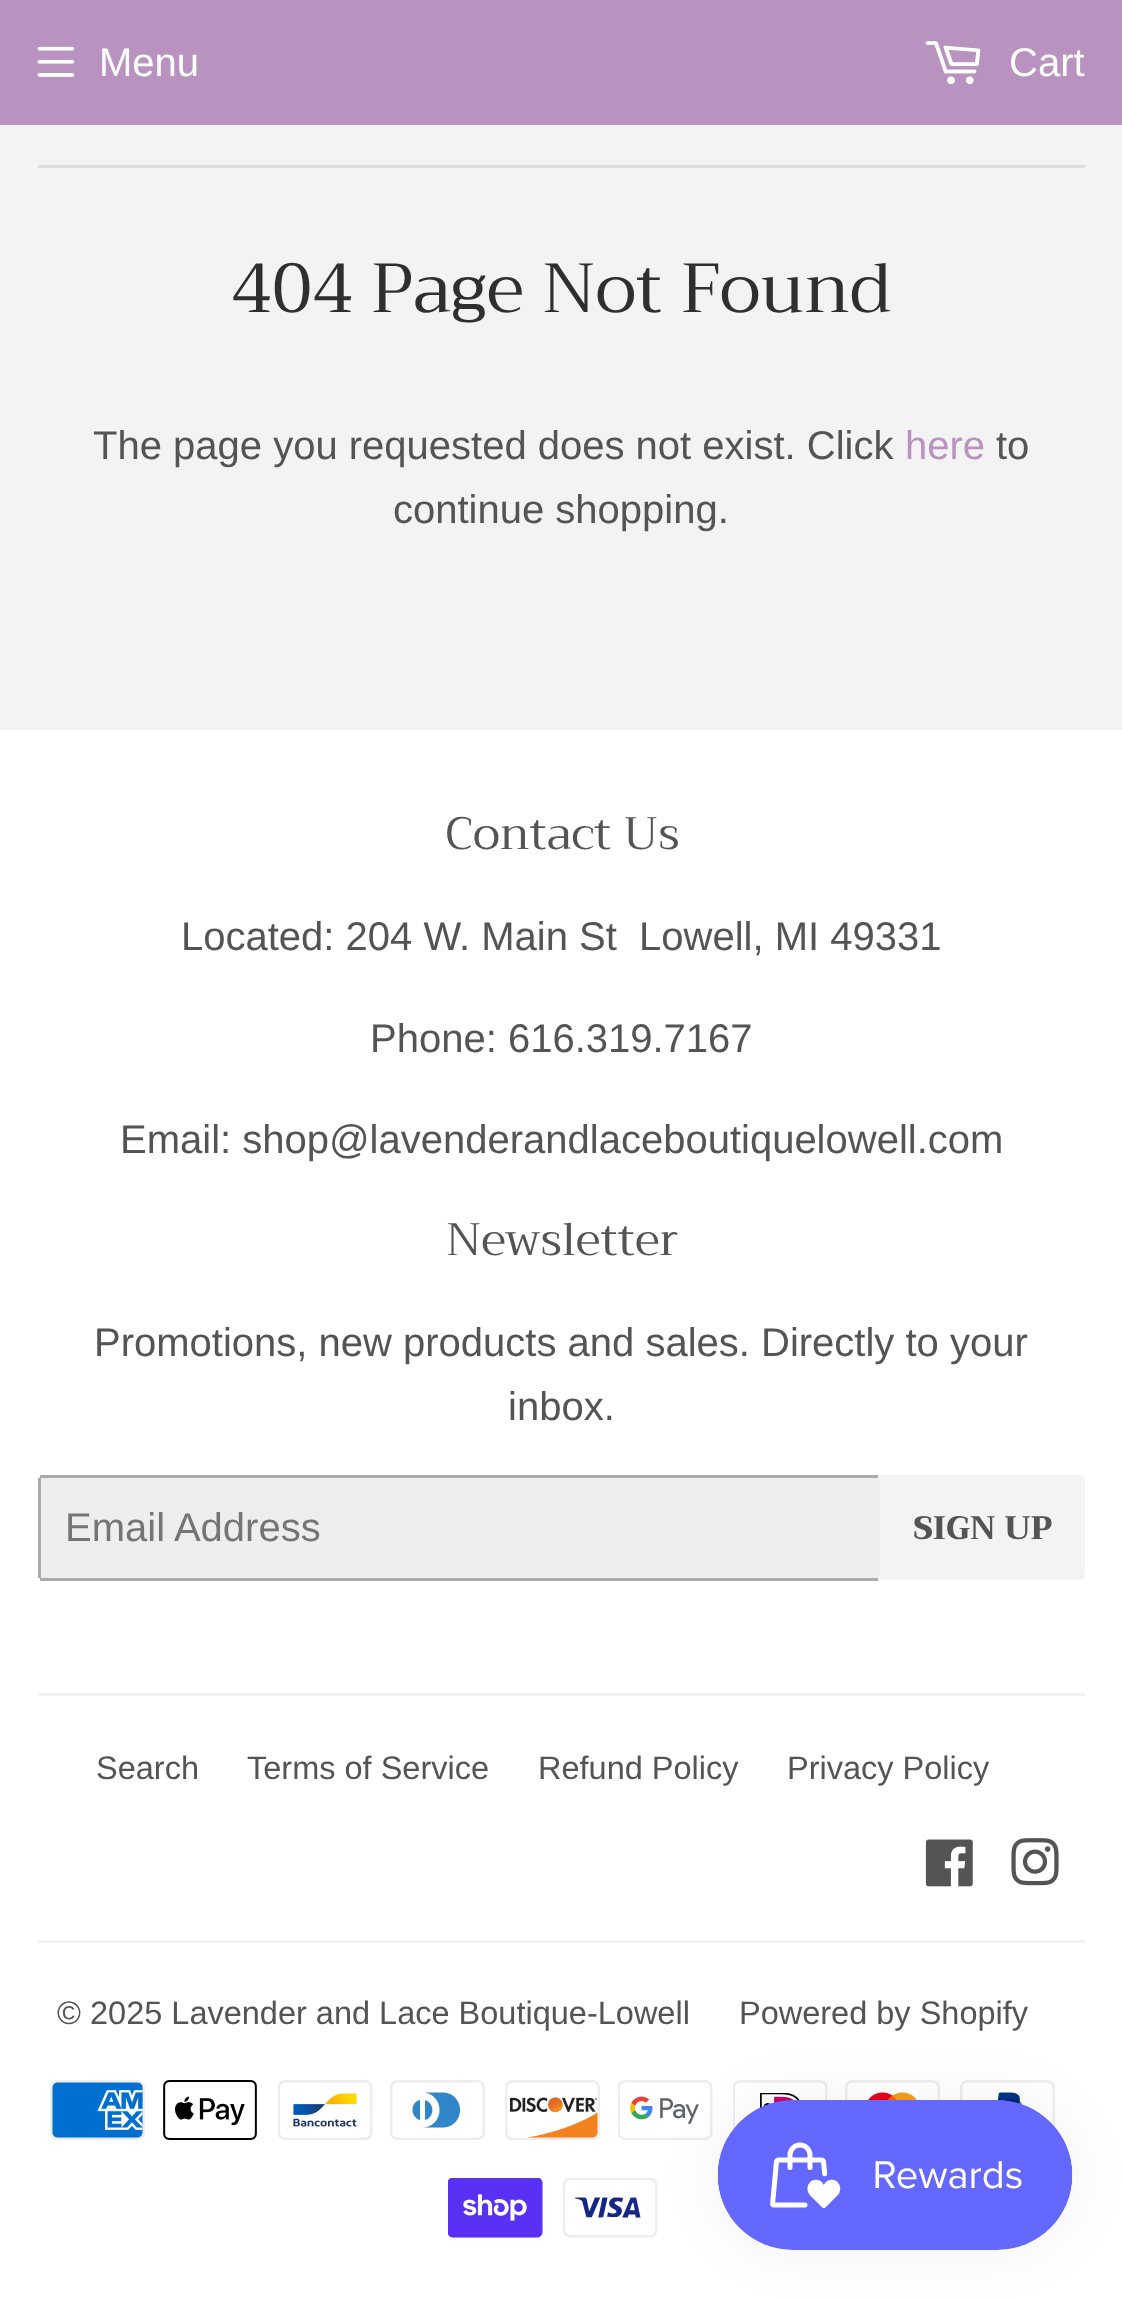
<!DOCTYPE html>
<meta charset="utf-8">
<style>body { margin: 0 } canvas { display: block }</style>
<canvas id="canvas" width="1122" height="2300"></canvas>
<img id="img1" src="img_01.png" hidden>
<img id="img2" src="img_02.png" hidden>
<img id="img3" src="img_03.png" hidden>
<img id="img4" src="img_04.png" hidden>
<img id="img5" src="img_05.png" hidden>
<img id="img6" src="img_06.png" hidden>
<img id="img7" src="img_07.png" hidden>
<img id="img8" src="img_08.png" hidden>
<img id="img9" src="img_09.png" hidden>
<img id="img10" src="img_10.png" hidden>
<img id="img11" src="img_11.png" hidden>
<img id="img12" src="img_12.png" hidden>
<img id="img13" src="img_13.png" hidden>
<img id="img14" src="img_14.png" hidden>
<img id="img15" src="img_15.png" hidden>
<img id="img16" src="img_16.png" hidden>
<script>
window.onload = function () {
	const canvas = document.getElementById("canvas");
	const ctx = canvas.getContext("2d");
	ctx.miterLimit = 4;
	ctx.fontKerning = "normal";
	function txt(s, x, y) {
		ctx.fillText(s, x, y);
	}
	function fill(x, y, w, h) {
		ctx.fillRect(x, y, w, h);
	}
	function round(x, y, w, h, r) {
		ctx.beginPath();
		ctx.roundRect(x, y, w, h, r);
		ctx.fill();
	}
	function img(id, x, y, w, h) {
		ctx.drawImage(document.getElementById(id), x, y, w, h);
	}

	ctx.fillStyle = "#F3F3F3";
	fill(0, 0, 1122, 2300);
	ctx.fillStyle = "#B893C0";
	fill(0, 0, 1122, 125);
	img("img1", 37, 46, 38, 31);
	img("img2", 925, 41, 56, 44);
	ctx.fillStyle = "#DEDEDE";
	fill(38, 165, 1047, 3);
	ctx.fillStyle = "#FFFFFF";
	fill(0, 730, 1122, 1570);
	ctx.fillStyle = "#EEEEEE";
	round(38, 1475, 842, 105, 5);
	ctx.fillStyle = "#ABABAB";
	fill(40, 1475, 838, 3);
	fill(40, 1578, 838, 3);
	fill(38, 1478, 3, 100);
	ctx.fillStyle = "#F3F3F3";
	ctx.beginPath();
	ctx.roundRect(880, 1475, 205, 105, [0, 5, 5, 0]);
	ctx.fill();
	ctx.fillStyle = "#F2F2F2";
	fill(38, 1693, 1047, 3);
	img("img3", 925, 1839, 48, 48);
	img("img4", 1011, 1838, 48, 48);
	fill(38, 1940, 1047, 3);
	img("img5", 50, 2080, 95, 60);
	img("img6", 163, 2080, 94, 60);
	img("img7", 278, 2080, 95, 60);
	img("img8", 390, 2080, 95, 60);
	img("img9", 505, 2080, 95, 60);
	img("img10", 618, 2080, 95, 60);
	img("img11", 733, 2080, 95, 50);
	img("img12", 845, 2080, 95, 20);
	img("img13", 960, 2080, 95, 47);
	img("img14", 448, 2178, 95, 60);
	img("img15", 563, 2178, 95, 60);
	ctx.fillStyle = "rgba(0, 0, 0, 0.05)";
	ctx.filter = "blur(31px)";
	ctx.beginPath();
	ctx.roundRect(718, 2100, 355, 150, 75);
	ctx.fill();
	ctx.filter = "none";
	img("img16", 717, 2100, 356, 150);
	ctx.font = "40px Arimo";
	ctx.fillStyle = "#FFFFFF";
	txt("Menu", 99, 76);
	txt("Cart", 1009, 76);
	ctx.font = "69.25px Trirong";
	ctx.fillStyle = "#2F2F2F";
	txt("404 Page Not Found", 231, 312);
	ctx.font = "40px Arimo";
	ctx.fillStyle = "#545454";
	txt("The page you requested does not exist. Click", 93, 459);
	ctx.fillStyle = "#B893C0";
	txt("here", 905, 459);
	ctx.fillStyle = "#545454";
	txt("to", 996, 459);
	txt("continue shopping.", 393, 523);
	ctx.font = "45.5px Trirong";
	txt("Contact Us", 445, 849);
	ctx.font = "40px Arimo";
	txt("Located: 204 W. Main St  Lowell, MI 49331", 181, 950);
	txt("Phone: 616.319.7167", 370, 1052);
	txt("Email: shop@lavenderandlaceboutiquelowell.com", 120, 1153);
	ctx.font = "45.5px Trirong";
	txt("Newsletter", 446, 1255);
	ctx.font = "40px Arimo";
	txt("Promotions, new products and sales. Directly to your", 94, 1356);
	txt("inbox.", 508, 1420);
	ctx.fillStyle = "#757575";
	txt("Email Address", 65, 1541);
	ctx.font = "800 32.5px Trirong";
	ctx.fillStyle = "#545454";
	txt("SIGN UP", 913, 1539);
	ctx.font = "32.5px Arimo";
	txt("Search", 96, 1779);
	txt("Terms of Service", 247, 1779);
	txt("Refund Policy", 538, 1779);
	txt("Privacy Policy", 787, 1779);
	txt("© 2025 Lavender and Lace Boutique-Lowell", 57, 2024);
	txt("Powered by Shopify", 739, 2024);
};
</script>
